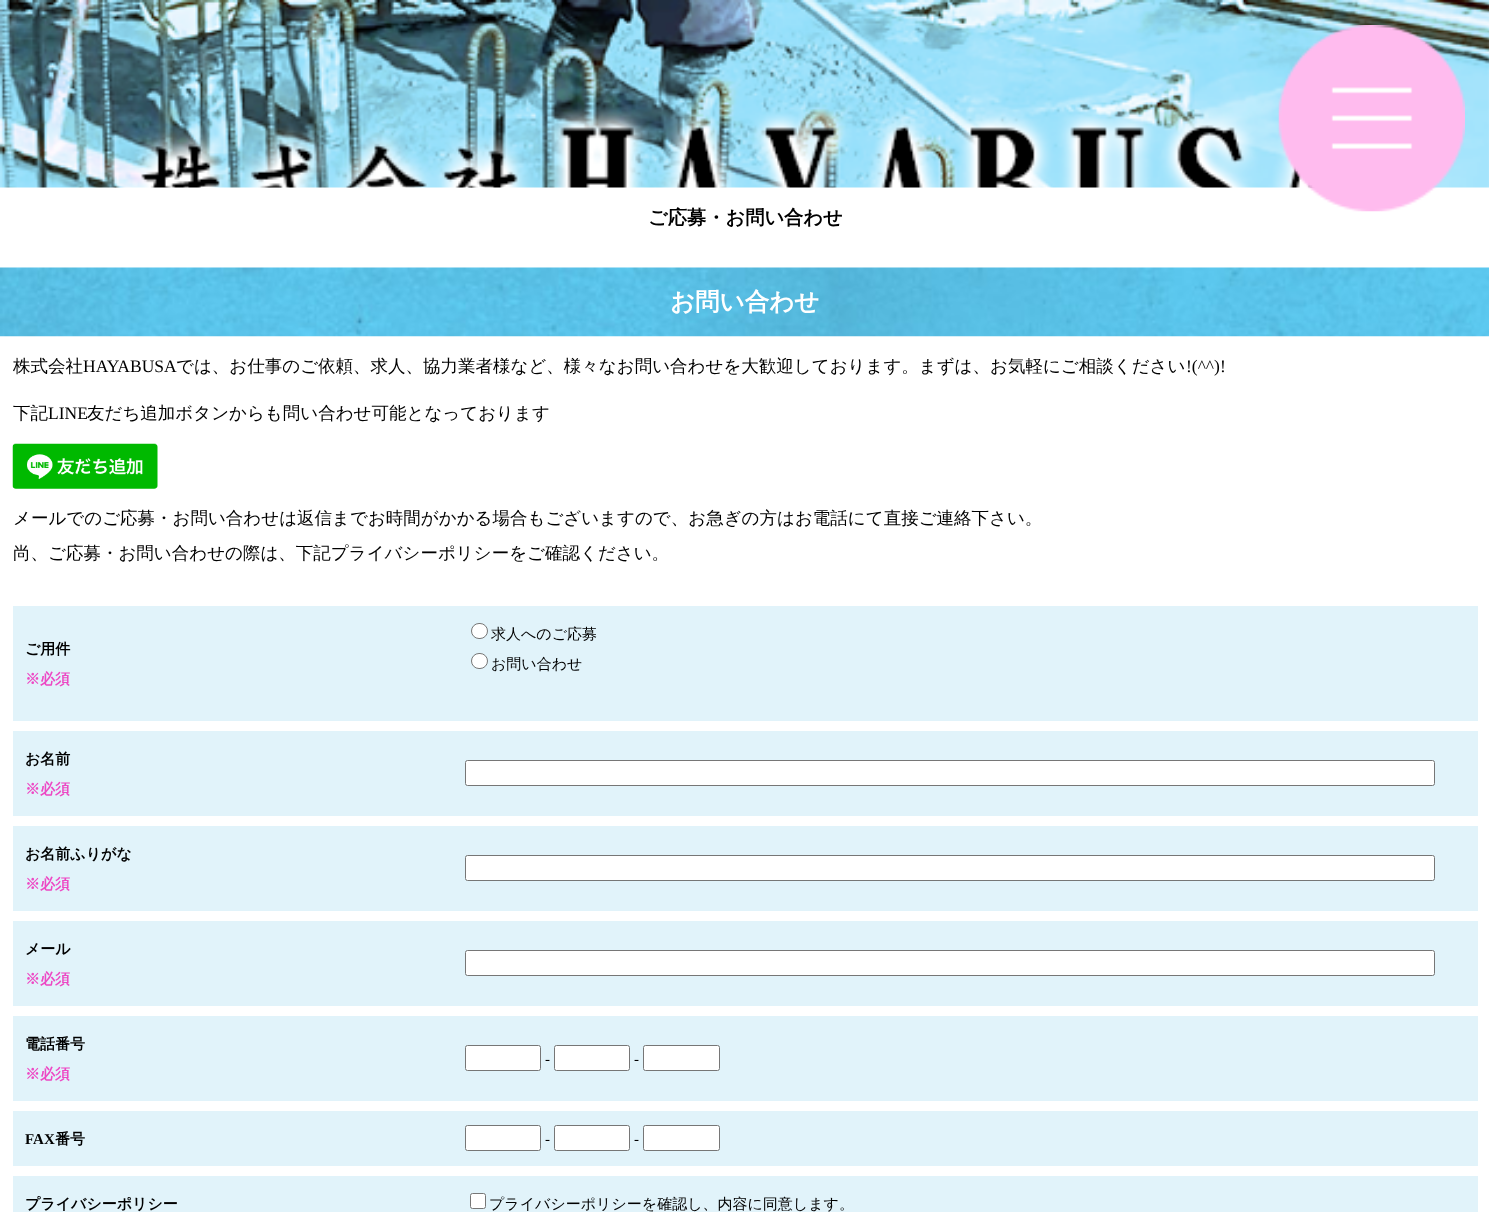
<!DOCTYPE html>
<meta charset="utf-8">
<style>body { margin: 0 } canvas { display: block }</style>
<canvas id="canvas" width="1489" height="1212"></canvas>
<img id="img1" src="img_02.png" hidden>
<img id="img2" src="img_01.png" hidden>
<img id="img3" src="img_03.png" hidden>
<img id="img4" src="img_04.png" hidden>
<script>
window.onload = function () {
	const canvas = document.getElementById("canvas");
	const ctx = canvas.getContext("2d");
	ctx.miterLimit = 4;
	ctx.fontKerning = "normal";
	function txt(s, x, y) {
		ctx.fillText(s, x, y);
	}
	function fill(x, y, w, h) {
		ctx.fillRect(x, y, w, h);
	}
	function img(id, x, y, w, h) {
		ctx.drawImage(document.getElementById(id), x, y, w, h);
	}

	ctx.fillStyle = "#FFFFFF";
	fill(0, 0, 1489, 1212);
	img("img1", 0, 0, 1489, 188);
	img("img2", 1278, 25, 187, 187);
	img("img3", 0, 267, 1489, 70);
	img("img4", 12, 443, 146, 46);
	ctx.fillStyle = "#E1F3FA";
	fill(13, 606, 1465, 115);
	ctx.fillStyle = "#FFFFFF";
	ctx.beginPath();
	ctx.roundRect(471.5, 623.5, 16, 15, 7.5);
	ctx.fill();
	ctx.strokeStyle = "#767676";
	ctx.stroke();
	ctx.beginPath();
	ctx.roundRect(471.5, 653.5, 16, 15, 7.5);
	ctx.fill();
	ctx.stroke();
	ctx.fillStyle = "#E1F3FA";
	fill(13, 731, 1465, 85);
	ctx.fillStyle = "#FFFFFF";
	ctx.beginPath();
	ctx.roundRect(465.5, 760.5, 969, 25, 2);
	ctx.fill();
	ctx.stroke();
	ctx.fillStyle = "#E1F3FA";
	fill(13, 826, 1465, 85);
	ctx.fillStyle = "#FFFFFF";
	ctx.beginPath();
	ctx.roundRect(465.5, 855.5, 969, 25, 2);
	ctx.fill();
	ctx.stroke();
	ctx.fillStyle = "#E1F3FA";
	fill(13, 921, 1465, 85);
	ctx.fillStyle = "#FFFFFF";
	ctx.beginPath();
	ctx.roundRect(465.5, 950.5, 969, 25, 2);
	ctx.fill();
	ctx.stroke();
	ctx.fillStyle = "#E1F3FA";
	fill(13, 1016, 1465, 85);
	ctx.fillStyle = "#FFFFFF";
	ctx.beginPath();
	ctx.roundRect(465.5, 1045.5, 75, 25, 2);
	ctx.fill();
	ctx.stroke();
	ctx.beginPath();
	ctx.roundRect(554.5, 1045.5, 75, 25, 2);
	ctx.fill();
	ctx.stroke();
	ctx.beginPath();
	ctx.roundRect(643.5, 1045.5, 76, 25, 2);
	ctx.fill();
	ctx.stroke();
	ctx.fillStyle = "#E1F3FA";
	fill(13, 1111, 1465, 55);
	ctx.fillStyle = "#FFFFFF";
	ctx.beginPath();
	ctx.roundRect(465.5, 1125.5, 75, 25, 2);
	ctx.fill();
	ctx.stroke();
	ctx.beginPath();
	ctx.roundRect(554.5, 1125.5, 75, 25, 2);
	ctx.fill();
	ctx.stroke();
	ctx.beginPath();
	ctx.roundRect(643.5, 1125.5, 76, 25, 2);
	ctx.fill();
	ctx.stroke();
	ctx.fillStyle = "#E1F3FA";
	fill(13, 1176, 1465, 36);
	ctx.fillStyle = "#FFFFFF";
	ctx.beginPath();
	ctx.roundRect(470.5, 1193.5, 15, 15, 2);
	ctx.fill();
	ctx.stroke();
	ctx.font = "bold 19.25px WenQuanYi Zen Hei";
	ctx.fillStyle = "#000000";
	txt("ご応募・お問い合わせ", 648, 224);
	ctx.font = "bold 24.5px WenQuanYi Zen Hei";
	ctx.fillStyle = "#FFFFFF";
	txt("お問い合わせ", 670, 310);
	ctx.font = "500 17.5px WenQuanYi Zen Hei";
	ctx.fillStyle = "#000000";
	txt("株式会社", 13, 372);
	ctx.font = "17.5px Liberation Serif";
	txt("HAYABUSA", 83, 372);
	ctx.font = "500 17.5px WenQuanYi Zen Hei";
	txt("では、お仕事のご依頼、求人、協力業者様など、様々なお問い合わせを大歓迎しております。まずは、お気軽にご相談ください", 176, 372);
	ctx.font = "17.5px Liberation Serif";
	txt("!(^^)!", 1186, 372);
	ctx.font = "500 17.5px WenQuanYi Zen Hei";
	txt("下記", 13, 419);
	ctx.font = "17.5px Liberation Serif";
	txt("LINE", 48, 419);
	ctx.font = "500 17.5px WenQuanYi Zen Hei";
	txt("友だち追加ボタンからも問い合わせ可能となっております", 87, 419);
	txt("メールでのご応募・お問い合わせは返信までお時間がかかる場合もございますので、お急ぎの方はお電話にて直接ご連絡下さい。", 13, 524);
	txt("尚、ご応募・お問い合わせの際は、下記プライバシーポリシーをご確認ください。", 13, 559);
	ctx.font = "bold 15px WenQuanYi Zen Hei";
	txt("ご用件", 25, 654);
	ctx.fillStyle = "#ED48C4";
	txt("※必須", 25, 684);
	ctx.font = "500 15px WenQuanYi Zen Hei";
	ctx.fillStyle = "#000000";
	txt("求人へのご応募", 491, 639);
	txt("お問い合わせ", 491, 669);
	ctx.font = "bold 15px WenQuanYi Zen Hei";
	txt("お名前", 25, 764);
	ctx.fillStyle = "#ED48C4";
	txt("※必須", 25, 794);
	ctx.fillStyle = "#000000";
	txt("お名前ふりがな", 25, 859);
	ctx.fillStyle = "#ED48C4";
	txt("※必須", 25, 889);
	ctx.fillStyle = "#000000";
	txt("メール", 25, 954);
	ctx.fillStyle = "#ED48C4";
	txt("※必須", 25, 984);
	ctx.fillStyle = "#000000";
	txt("電話番号", 25, 1049);
	ctx.fillStyle = "#ED48C4";
	txt("※必須", 25, 1079);
	ctx.font = "15px Liberation Serif";
	ctx.fillStyle = "#000000";
	txt("-", 545, 1064);
	txt("-", 634, 1064);
	ctx.font = "bold 15px Liberation Serif";
	txt("FAX", 25, 1144);
	ctx.font = "bold 15px WenQuanYi Zen Hei";
	txt("番号", 55, 1144);
	ctx.font = "15px Liberation Serif";
	txt("-", 545, 1144);
	txt("-", 634, 1144);
	ctx.font = "bold 15px WenQuanYi Zen Hei";
	txt("プライバシーポリシー", 25, 1209);
	ctx.font = "500 15px WenQuanYi Zen Hei";
	txt("プライバシーポリシーを確認し、内容に同意します。", 489, 1209);
};
</script>
